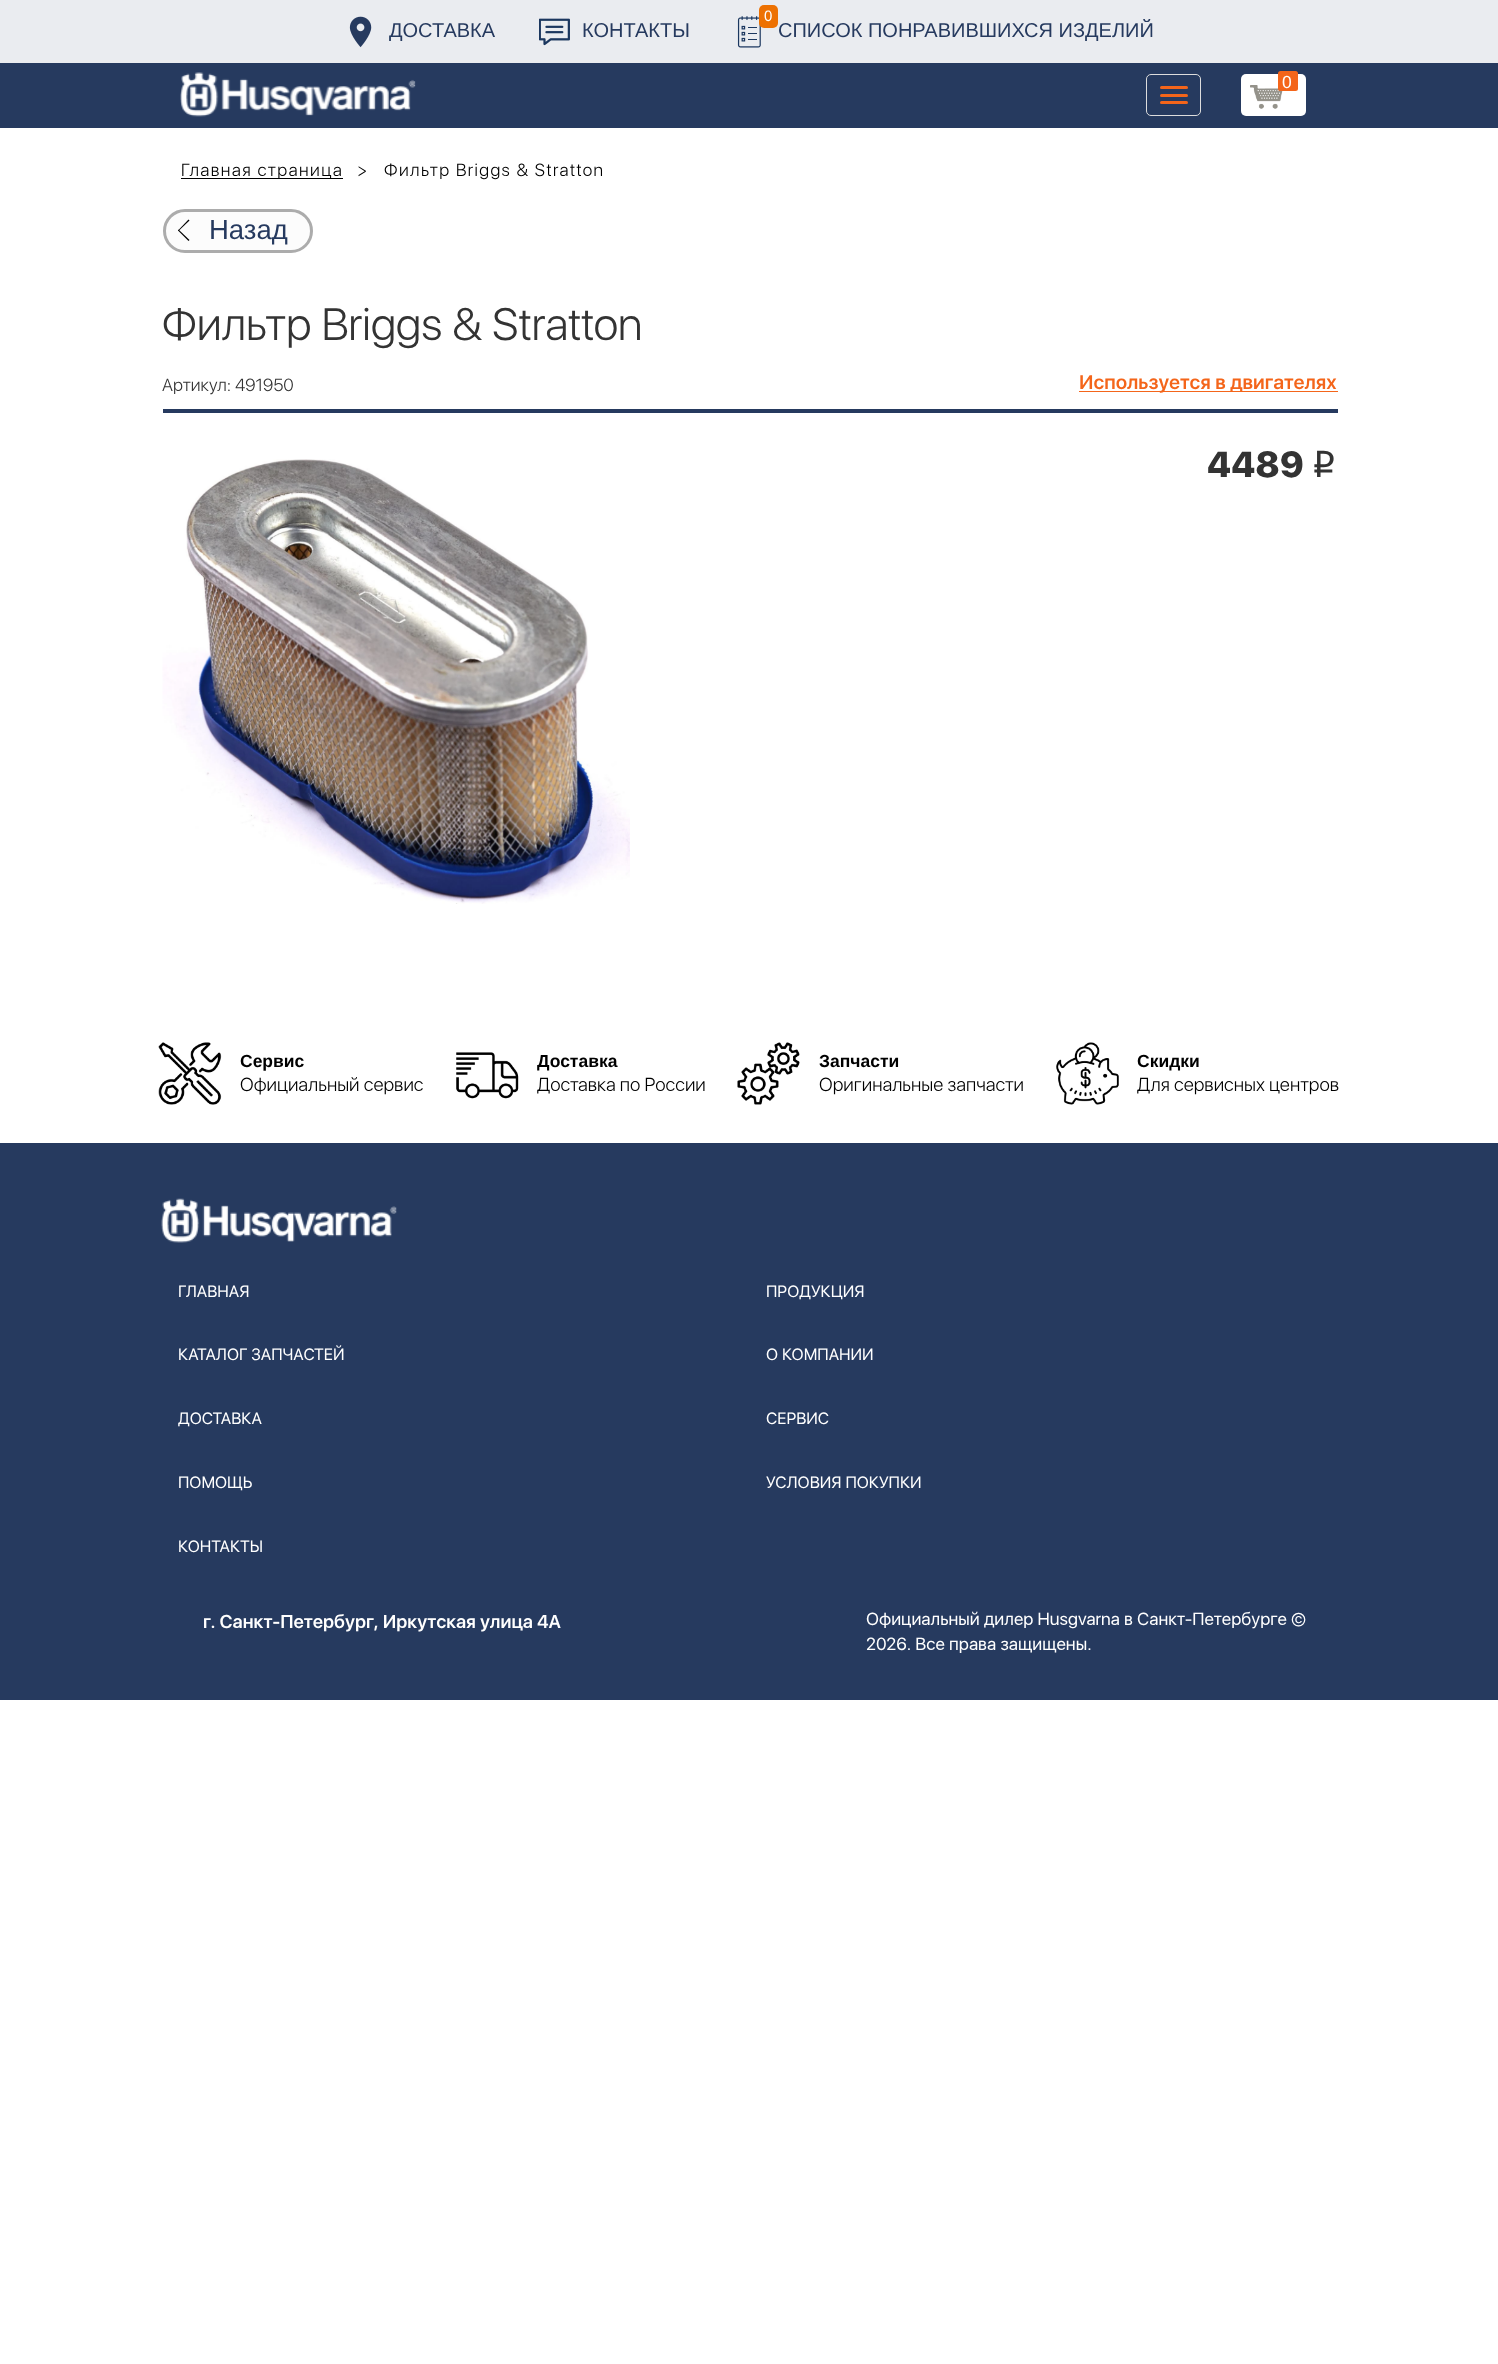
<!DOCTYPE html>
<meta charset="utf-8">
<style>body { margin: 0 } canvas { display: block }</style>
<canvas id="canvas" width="1498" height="2364"></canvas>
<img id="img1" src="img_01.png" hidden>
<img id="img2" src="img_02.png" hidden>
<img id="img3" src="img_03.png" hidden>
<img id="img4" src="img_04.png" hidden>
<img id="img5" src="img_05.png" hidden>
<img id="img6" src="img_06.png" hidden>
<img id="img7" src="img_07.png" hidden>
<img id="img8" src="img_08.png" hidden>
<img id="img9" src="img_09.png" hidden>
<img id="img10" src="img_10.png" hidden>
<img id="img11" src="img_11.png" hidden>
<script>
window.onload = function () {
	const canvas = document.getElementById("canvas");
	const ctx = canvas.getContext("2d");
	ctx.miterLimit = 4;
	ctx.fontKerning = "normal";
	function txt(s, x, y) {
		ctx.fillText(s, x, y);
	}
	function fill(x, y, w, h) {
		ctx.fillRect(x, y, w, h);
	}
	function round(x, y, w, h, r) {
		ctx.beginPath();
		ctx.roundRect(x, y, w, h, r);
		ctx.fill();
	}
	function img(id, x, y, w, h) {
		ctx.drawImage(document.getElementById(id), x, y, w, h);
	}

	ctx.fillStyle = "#FFFFFF";
	fill(0, 0, 1498, 2364);
	ctx.fillStyle = "#EAECF0";
	fill(0, 0, 1498, 63);
	img("img1", 349, 16, 23, 32);
	img("img2", 539, 18, 31, 28);
	img("img3", 737, 16, 24, 32);
	ctx.fillStyle = "#ED7102";
	round(759, 5, 19, 23, 5);
	ctx.fillStyle = "#263A5F";
	fill(0, 63, 1498, 65);
	img("img4", 180, 72, 236, 45);
	ctx.beginPath();
	ctx.roundRect(1146.5, 74.5, 54, 41, 4.5);
	ctx.strokeStyle = "#DDDDDD";
	ctx.stroke();
	ctx.fillStyle = "#F4651A";
	round(1160, 86, 28, 3, 1.5);
	round(1160, 94, 28, 3, 1.5);
	round(1160, 101, 28, 3, 1.5);
	ctx.fillStyle = "#FFFFFF";
	round(1241, 74, 65, 42, 5);
	img("img5", 1250, 85, 33, 24);
	ctx.fillStyle = "#F4651A";
	round(1278, 71, 20, 20, 2.5);
	ctx.fillStyle = "#000000";
	fill(181, 178, 162, 1);
	ctx.fillStyle = "#FCFCFC";
	ctx.beginPath();
	ctx.roundRect(164.5, 210.5, 147, 41, 20.5);
	ctx.fill();
	ctx.strokeStyle = "#ACACAC";
	ctx.lineWidth = 3;
	ctx.stroke();
	ctx.fillStyle = "#000000";
	ctx.beginPath();
	ctx.moveTo(178, 230.5);
	ctx.lineTo(188.5, 219.5);
	ctx.lineTo(189.5, 220.5);
	ctx.lineTo(178.5, 231);
	ctx.closePath();
	ctx.fill();
	ctx.beginPath();
	ctx.moveTo(178, 230.5);
	ctx.lineTo(178.5, 229.5);
	ctx.lineTo(189.5, 240);
	ctx.lineTo(188.5, 241);
	ctx.closePath();
	ctx.fill();
	ctx.fillStyle = "#F4651A";
	fill(1079, 391, 259, 1);
	ctx.fillStyle = "#263A5F";
	fill(163, 409, 1175, 4);
	img("img6", 162, 459, 468, 445);
	img("img7", 158, 1042, 64, 63);
	img("img8", 456, 1052, 63, 47);
	img("img9", 737, 1042, 63, 63);
	img("img10", 1056, 1042, 63, 63);
	fill(0, 1143, 1498, 557);
	img("img11", 161, 1198, 236, 45);
	ctx.font = "20px Liberation Sans";
	txt("ДОСТАВКА", 389, 37);
	txt("КОНТАКТЫ", 582, 37);
	ctx.font = "15px Liberation Sans";
	ctx.fillStyle = "#FFFFFF";
	txt("0", 764, 21);
	ctx.font = "20px Liberation Sans";
	ctx.fillStyle = "#263A5F";
	txt("СПИСОК ПОНРАВИВШИХСЯ ИЗДЕЛИЙ", 778, 37);
	ctx.font = "17.5px Liberation Sans";
	ctx.fillStyle = "#FFFFFF";
	txt("0", 1282, 88);
	ctx.letterSpacing = "1.4px";
	ctx.font = "300 17.5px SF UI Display";
	ctx.fillStyle = "#000000";
	txt("Главная страница", 181, 176);
	txt(">", 357, 176);
	txt("Фильтр Briggs & Stratton", 384, 176);
	ctx.letterSpacing = "0px";
	ctx.font = "27.5px Liberation Sans";
	ctx.fillStyle = "#263A5F";
	txt("Назад", 209, 239);
	ctx.font = "300 45px SF UI Display";
	ctx.fillStyle = "#333333";
	txt("Фильтр Briggs & Stratton", 162, 340);
	ctx.font = "300 17.5px SF UI Display";
	txt("Артикул: 491950", 162, 391);
	ctx.font = "600 20px SF UI Display";
	ctx.fillStyle = "#F4651A";
	txt("Используется в двигателях", 1079, 389);
	ctx.font = "900 37.5px SF UI Display";
	ctx.fillStyle = "#333333";
	txt("4489", 1207, 477);
	ctx.font = "37.5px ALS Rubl";
	txt("i", 1311, 477);
	ctx.font = "bold 17.5px Liberation Sans";
	ctx.fillStyle = "#000000";
	txt("Сервис", 240, 1067);
	ctx.font = "300 18.75px SF UI Display";
	txt("Официальный сервис", 240, 1091);
	ctx.font = "bold 17.5px Liberation Sans";
	txt("Доставка", 537, 1067);
	ctx.font = "300 18.75px SF UI Display";
	txt("Доставка по России", 537, 1091);
	ctx.font = "bold 17.5px Liberation Sans";
	txt("Запчасти", 819, 1067);
	ctx.font = "300 18.75px SF UI Display";
	txt("Оригинальные запчасти", 819, 1091);
	ctx.font = "bold 17.5px Liberation Sans";
	txt("Скидки", 1137, 1067);
	ctx.font = "300 18.75px SF UI Display";
	txt("Для сервисных центров", 1137, 1091);
	ctx.font = "16.25px SF UI Display";
	ctx.fillStyle = "#FFFFFF";
	txt("ГЛАВНАЯ", 178, 1297);
	txt("ПРОДУКЦИЯ", 766, 1297);
	txt("КАТАЛОГ ЗАПЧАСТЕЙ", 178, 1360);
	txt("О КОМПАНИИ", 766, 1360);
	txt("ДОСТАВКА", 178, 1424);
	txt("СЕРВИС", 766, 1424);
	txt("ПОМОЩЬ", 178, 1488);
	txt("УСЛОВИЯ ПОКУПКИ", 766, 1488);
	txt("КОНТАКТЫ", 178, 1552);
	ctx.font = "600 18.75px SF UI Display";
	txt("г. Санкт-Петербург, Иркутская улица 4А", 203, 1628);
	ctx.font = "17.5px SF UI Display";
	txt("Официальный дилер Husgvarna в Санкт-Петербурге ©", 866, 1625);
	txt("2026. Все права защищены.", 866, 1650);
};
</script>
